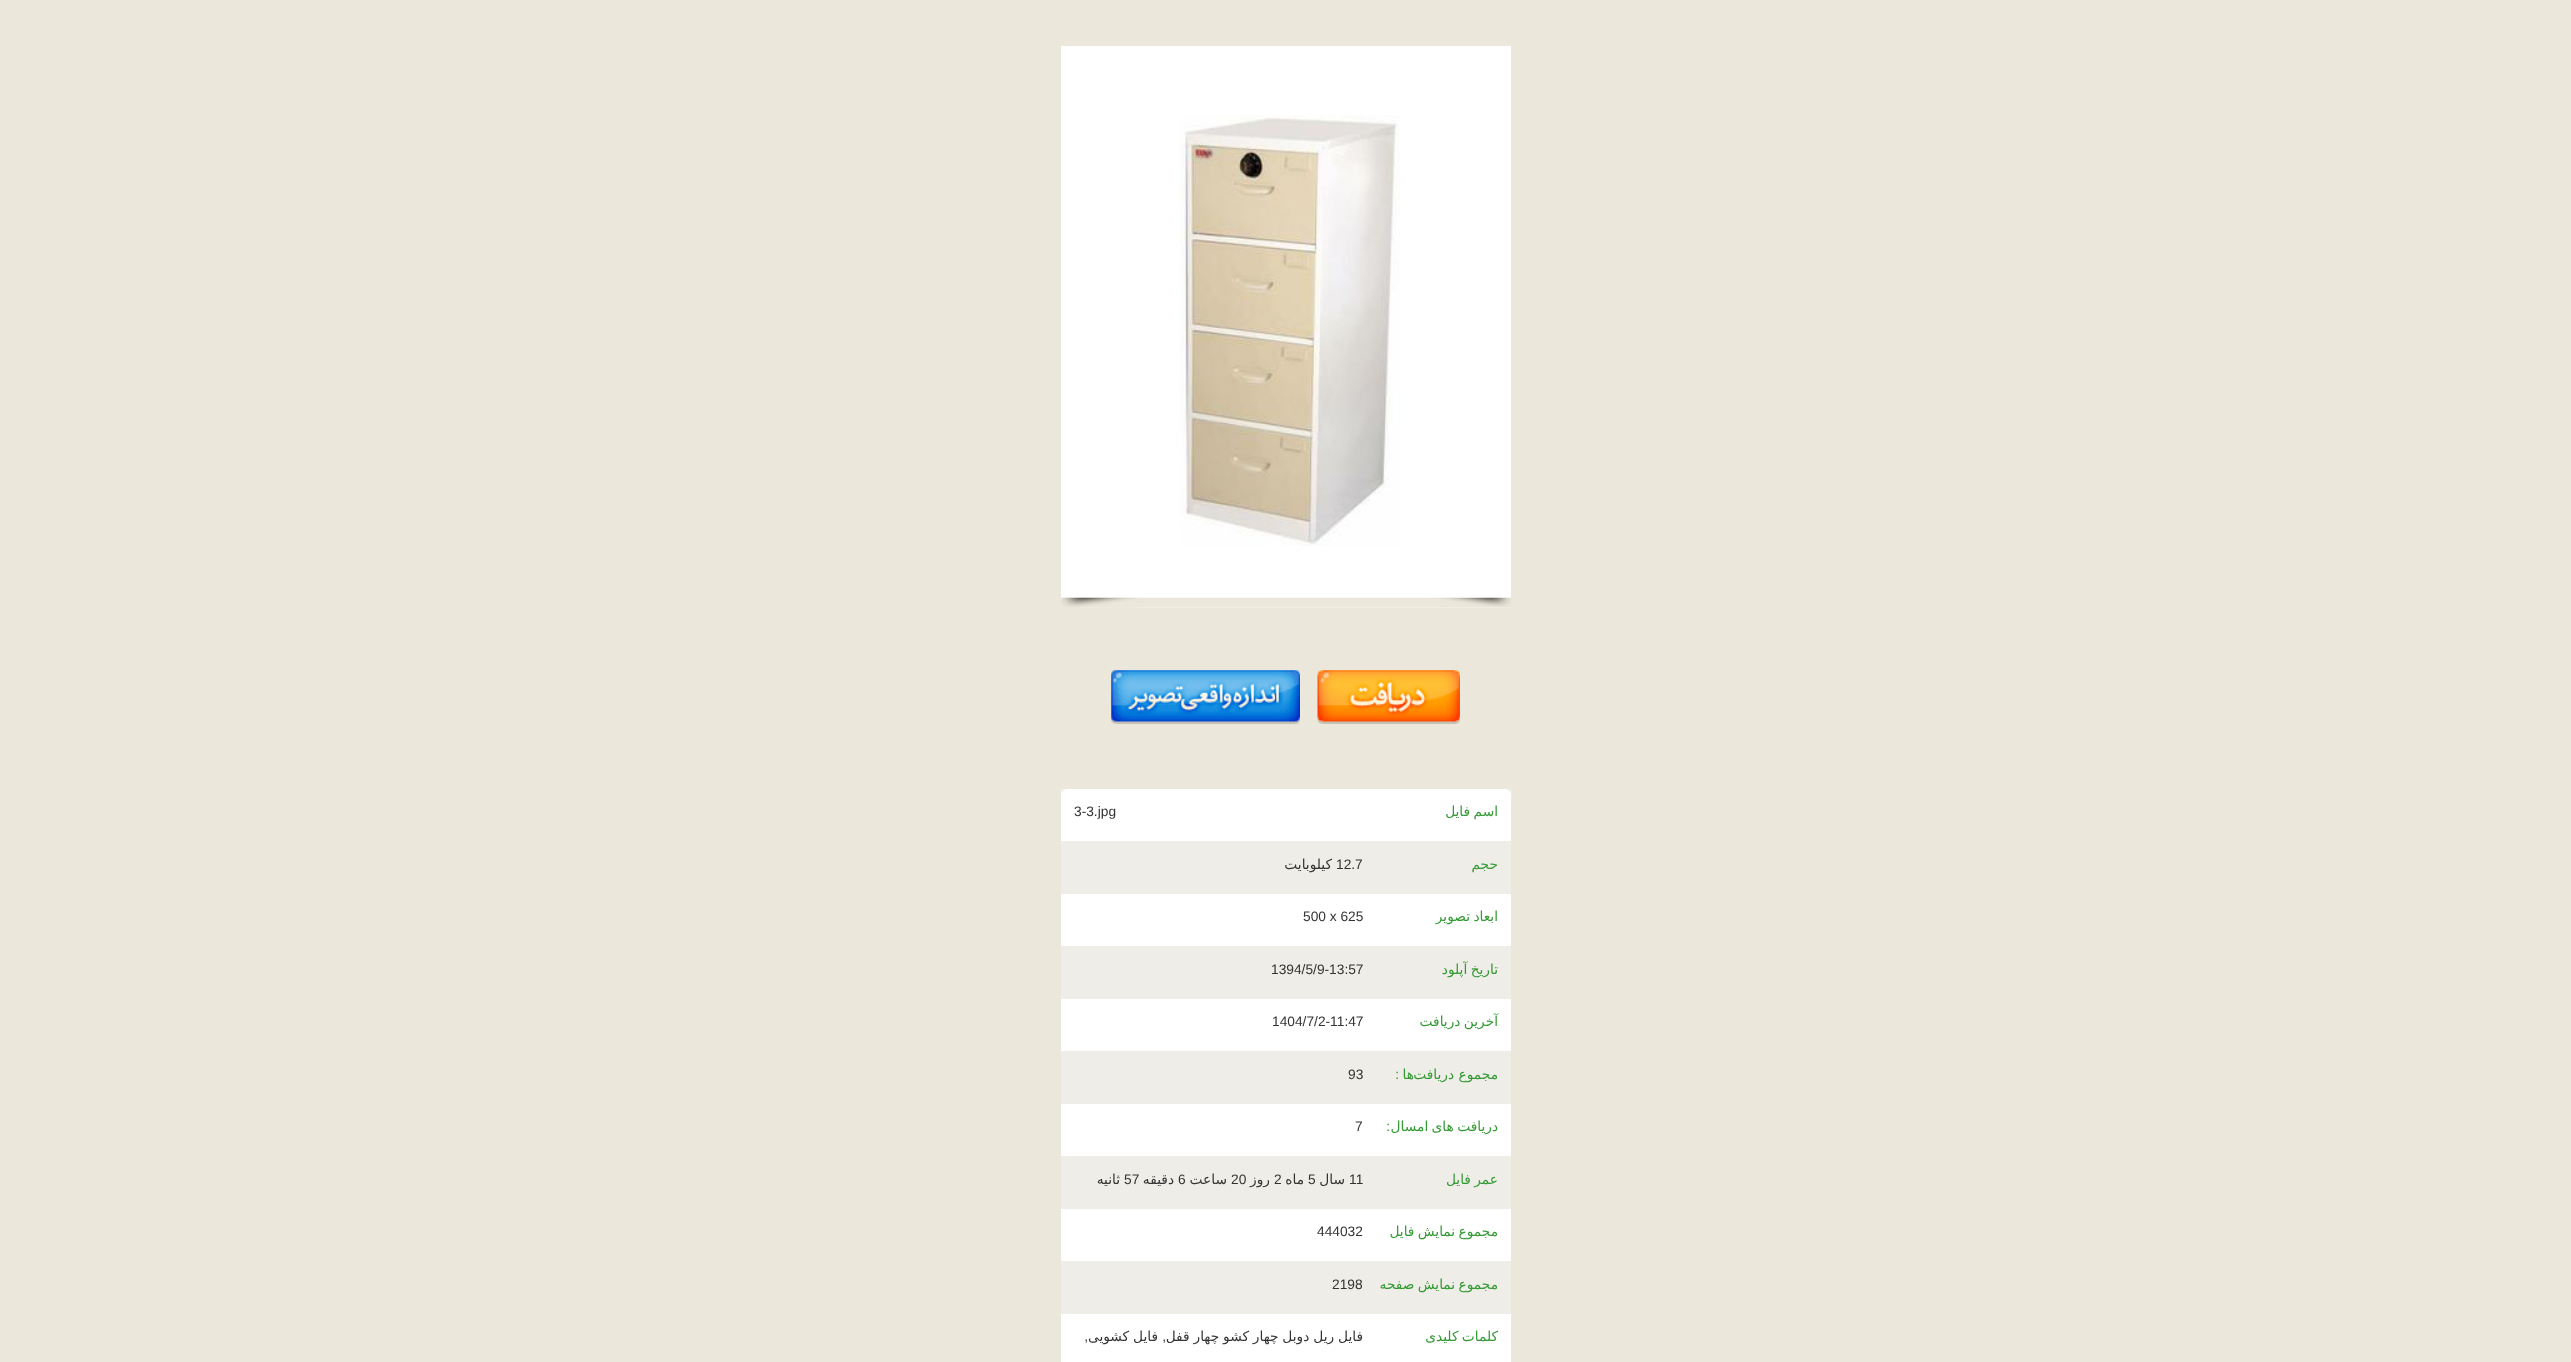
<!DOCTYPE html>
<meta charset="utf-8">
<style>body { margin: 0 } canvas { display: block }</style>
<canvas id="canvas" width="2571" height="1362"></canvas>
<img id="img1" src="img_01.png" hidden>
<img id="img2" src="img_02.png" hidden>
<img id="img3" src="img_03.png" hidden>
<img id="img4" src="img_04.png" hidden>
<img id="img5" src="img_05.png" hidden>
<img id="img6" src="img_06.png" hidden>
<img id="img7" src="img_07.png" hidden>
<script>
window.onload = function () {
	const canvas = document.getElementById("canvas");
	const ctx = canvas.getContext("2d");
	ctx.miterLimit = 4;
	ctx.fontKerning = "normal";
	function txt(s, x, y) {
		ctx.fillText(s, x, y);
	}
	function fill(x, y, w, h) {
		ctx.fillRect(x, y, w, h);
	}
	function img(id, x, y, w, h) {
		ctx.drawImage(document.getElementById(id), x, y, w, h);
	}

	ctx.fillStyle = "#EBE7DA";
	fill(0, 0, 2571, 1362);
	ctx.fillStyle = "#FFFFFF";
	fill(1061, 46, 450, 562);
	img("img1", 1061, 597, 450, 11);
	img("img2", 1061, 597, 76, 11);
	img("img3", 1180, 115, 220, 431);
	img("img4", 1317, 670, 143, 54);
	img("img5", 1111, 670, 189, 54);
	fill(1061, 789, 450, 573);
	img("img6", 1506, 789, 6, 8);
	img("img7", 1061, 789, 5, 4);
	ctx.fillStyle = "#EEEDE7";
	fill(1061, 841, 450, 53);
	fill(1061, 946, 450, 53);
	fill(1061, 1051, 450, 53);
	fill(1061, 1156, 450, 53);
	fill(1061, 1261, 450, 53);
	ctx.wordSpacing = "-1px";
	ctx.direction = "rtl";
	ctx.font = "13.75px DejaVu Sans";
	ctx.fillStyle = "#339933";
	txt("اسم فایل", 1498, 816);
	ctx.wordSpacing = "0px";
	ctx.direction = "ltr";
	ctx.font = "13.75px Liberation Sans";
	ctx.fillStyle = "#333333";
	txt("3-3.jpg", 1074, 816);
	ctx.direction = "rtl";
	ctx.font = "13.75px DejaVu Sans";
	ctx.fillStyle = "#339933";
	txt("حجم", 1498, 869);
	ctx.direction = "ltr";
	ctx.font = "13.75px Liberation Sans";
	ctx.fillStyle = "#333333";
	txt("12.7", 1336, 869);
	ctx.direction = "rtl";
	ctx.font = "13.75px DejaVu Sans";
	txt("کیلوبایت", 1332, 869);
	ctx.wordSpacing = "-1px";
	ctx.fillStyle = "#339933";
	txt("ابعاد تصویر", 1498, 921);
	ctx.wordSpacing = "0px";
	ctx.direction = "ltr";
	ctx.font = "13.75px Liberation Sans";
	ctx.fillStyle = "#333333";
	txt("500 x 625", 1303, 921);
	ctx.wordSpacing = "-1px";
	ctx.direction = "rtl";
	ctx.font = "13.75px DejaVu Sans";
	ctx.fillStyle = "#339933";
	txt("تاریخ آپلود", 1498, 974);
	ctx.wordSpacing = "0px";
	ctx.direction = "ltr";
	ctx.font = "13.75px Liberation Sans";
	ctx.fillStyle = "#333333";
	txt("1394/5/9-13:57", 1271, 974);
	ctx.wordSpacing = "-1px";
	ctx.direction = "rtl";
	ctx.font = "13.75px DejaVu Sans";
	ctx.fillStyle = "#339933";
	txt("آخرین دریافت", 1498, 1026);
	ctx.wordSpacing = "0px";
	ctx.direction = "ltr";
	ctx.font = "13.75px Liberation Sans";
	ctx.fillStyle = "#333333";
	txt("1404/7/2-11:47", 1272, 1026);
	ctx.direction = "rtl";
	ctx.font = "13.75px DejaVu Sans";
	ctx.fillStyle = "#339933";
	txt("مجموع دریافت", 1498, 1079);
	txt("ها", 1414, 1079);
	ctx.font = "13.75px Liberation Sans";
	txt(":", 1399, 1079);
	ctx.direction = "ltr";
	ctx.fillStyle = "#333333";
	txt("93", 1348, 1079);
	ctx.wordSpacing = "-1px";
	ctx.direction = "rtl";
	ctx.font = "13.75px DejaVu Sans";
	ctx.fillStyle = "#339933";
	txt("دریافت های امسال", 1498, 1131);
	ctx.wordSpacing = "0px";
	ctx.font = "13.75px Liberation Sans";
	txt(":", 1390, 1131);
	ctx.direction = "ltr";
	ctx.fillStyle = "#333333";
	txt("7", 1355, 1131);
	ctx.wordSpacing = "-1px";
	ctx.direction = "rtl";
	ctx.font = "13.75px DejaVu Sans";
	ctx.fillStyle = "#339933";
	txt("عمر فایل", 1498, 1184);
	ctx.wordSpacing = "0px";
	ctx.direction = "ltr";
	ctx.font = "13.75px Liberation Sans";
	ctx.fillStyle = "#333333";
	txt("11", 1349, 1184);
	ctx.direction = "rtl";
	ctx.font = "13.75px DejaVu Sans";
	txt("سال", 1345, 1184);
	ctx.direction = "ltr";
	ctx.font = "13.75px Liberation Sans";
	txt("5", 1308, 1184);
	ctx.direction = "rtl";
	ctx.font = "13.75px DejaVu Sans";
	txt("ماه", 1304, 1184);
	ctx.direction = "ltr";
	ctx.font = "13.75px Liberation Sans";
	txt("2", 1274, 1184);
	ctx.direction = "rtl";
	ctx.font = "13.75px DejaVu Sans";
	txt("روز", 1270, 1184);
	ctx.direction = "ltr";
	ctx.font = "13.75px Liberation Sans";
	txt("20", 1231, 1184);
	ctx.direction = "rtl";
	ctx.font = "13.75px DejaVu Sans";
	txt("ساعت", 1227, 1184);
	ctx.direction = "ltr";
	ctx.font = "13.75px Liberation Sans";
	txt("6", 1178, 1184);
	ctx.direction = "rtl";
	ctx.font = "13.75px DejaVu Sans";
	txt("دقیقه", 1174, 1184);
	ctx.direction = "ltr";
	ctx.font = "13.75px Liberation Sans";
	txt("57", 1124, 1184);
	ctx.direction = "rtl";
	ctx.font = "13.75px DejaVu Sans";
	txt("ثانیه", 1120, 1184);
	ctx.wordSpacing = "-1px";
	ctx.fillStyle = "#339933";
	txt("مجموع نمایش فایل", 1498, 1236);
	ctx.wordSpacing = "0px";
	ctx.direction = "ltr";
	ctx.font = "13.75px Liberation Sans";
	ctx.fillStyle = "#333333";
	txt("444032", 1317, 1236);
	ctx.wordSpacing = "-1px";
	ctx.direction = "rtl";
	ctx.font = "13.75px DejaVu Sans";
	ctx.fillStyle = "#339933";
	txt("مجموع نمایش صفحه", 1498, 1289);
	ctx.wordSpacing = "0px";
	ctx.direction = "ltr";
	ctx.font = "13.75px Liberation Sans";
	ctx.fillStyle = "#333333";
	txt("2198", 1332, 1289);
	ctx.wordSpacing = "-1px";
	ctx.direction = "rtl";
	ctx.font = "13.75px DejaVu Sans";
	ctx.fillStyle = "#339933";
	txt("کلمات کلیدی", 1498, 1341);
	ctx.save();
	ctx.beginPath();
	ctx.rect(1074, 1326, 289, 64);
	ctx.clip();
	ctx.wordSpacing = "-0.5px";
	ctx.fillStyle = "#333333";
	txt("فایل ریل دوبل چهار کشو چهار قفل", 1363, 1341);
	ctx.restore();
	ctx.wordSpacing = "0px";
	ctx.font = "13.75px Liberation Sans";
	ctx.fillStyle = "#333333";
	txt(",", 1166, 1341);
	ctx.wordSpacing = "-0.5px";
	ctx.font = "13.75px DejaVu Sans";
	txt("فایل کشویی", 1158, 1341);
	ctx.wordSpacing = "0px";
	ctx.font = "13.75px Liberation Sans";
	txt(",", 1088, 1341);
};
</script>
